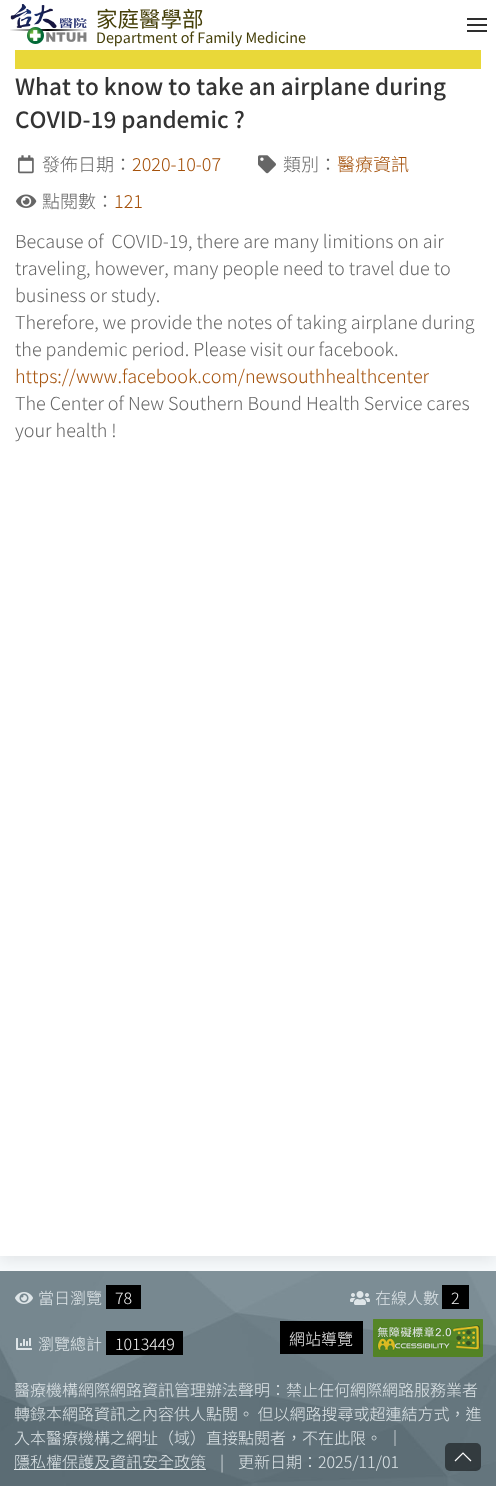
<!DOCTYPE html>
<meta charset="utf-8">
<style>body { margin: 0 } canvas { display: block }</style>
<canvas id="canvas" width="496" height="1486"></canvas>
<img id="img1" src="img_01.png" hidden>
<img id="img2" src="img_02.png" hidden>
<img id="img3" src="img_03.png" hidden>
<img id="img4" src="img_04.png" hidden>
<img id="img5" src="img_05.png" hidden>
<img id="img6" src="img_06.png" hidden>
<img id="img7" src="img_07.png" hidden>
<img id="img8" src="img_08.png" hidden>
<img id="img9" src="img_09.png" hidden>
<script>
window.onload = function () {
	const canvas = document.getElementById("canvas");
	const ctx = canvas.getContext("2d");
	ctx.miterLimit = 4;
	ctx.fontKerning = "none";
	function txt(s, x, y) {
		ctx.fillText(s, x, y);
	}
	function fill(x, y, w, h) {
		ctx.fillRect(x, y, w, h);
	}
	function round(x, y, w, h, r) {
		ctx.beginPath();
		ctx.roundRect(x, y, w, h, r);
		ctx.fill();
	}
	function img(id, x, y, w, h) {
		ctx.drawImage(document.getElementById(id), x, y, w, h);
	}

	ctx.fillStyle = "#F7FAFC";
	fill(0, 0, 496, 1486);
	ctx.fillStyle = "rgba(0, 0, 0, 0.08)";
	ctx.filter = "blur(7.5px)";
	ctx.beginPath();
	ctx.rect(0, -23, 496, 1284);
	ctx.fill();
	ctx.filter = "none";
	ctx.fillStyle = "#FFFFFF";
	fill(0, 0, 496, 1256);
	img("img1", 10, 4, 77, 40);
	ctx.fillStyle = "#2E2E2E";
	fill(467, 24, 20, 2);
	fill(467, 18, 20, 2);
	fill(467, 30, 20, 2);
	ctx.fillStyle = "#E9D839";
	fill(15, 50, 466, 19);
	img("img2", 18, 155, 16, 19);
	img("img3", 258, 155, 18, 19);
	img("img4", 16, 194, 21, 14);
	ctx.fillStyle = "#506873";
	fill(0, 1271, 496, 215);
	img("img5", 0, 1271, 496, 215);
	img("img6", 15, 1292, 18, 12);
	ctx.fillStyle = "#000000";
	fill(106, 1285, 35, 24);
	img("img7", 350, 1291, 20, 14);
	fill(442, 1285, 27, 24);
	img("img8", 16, 1338, 16, 12);
	fill(106, 1331, 77, 24);
	fill(280, 1321, 83, 33);
	img("img9", 373, 1319, 110, 38);
	ctx.fillStyle = "#DEE5E8";
	fill(14, 1469, 192, 1);
	ctx.fillStyle = "rgba(0, 0, 0, 0.5)";
	round(445, 1443, 36, 28, 5);
	ctx.beginPath();
	ctx.moveTo(455, 1461);
	ctx.lineTo(463, 1453);
	ctx.lineTo(471, 1461);
	ctx.strokeStyle = "#FFFFFF";
	ctx.lineWidth = 1.2;
	ctx.stroke();
	ctx.font = "21.5px Noto Sans TC";
	ctx.fillStyle = "#453F08";
	txt("家庭醫學部", 96, 27);
	ctx.font = "14.4px Noto Sans TC";
	txt("Department of Family Medicine", 96, 43);
	ctx.font = "500 22.5px Noto Sans TC";
	ctx.fillStyle = "#333333";
	txt("What to know to take an airplane during", 15, 95);
	txt("COVID-19 pandemic ?", 15, 128);
	ctx.font = "300 18px Noto Sans TC";
	ctx.fillStyle = "#666666";
	txt("發佈日期：", 42, 171);
	ctx.fillStyle = "#A45009";
	txt("2020-10-07", 132, 171);
	ctx.fillStyle = "#666666";
	txt("類別：", 283, 171);
	ctx.fillStyle = "#A45009";
	txt("醫療資訊", 337, 171);
	ctx.fillStyle = "#666666";
	txt("點閱數：", 42, 208);
	ctx.fillStyle = "#A45009";
	txt("121", 114, 208);
	ctx.fillStyle = "#666666";
	txt("Because of  COVID-19, there are many limitions on air", 15, 248);
	txt("traveling, however, many people need to travel due to", 15, 275);
	txt("business or study.", 15, 302);
	txt("Therefore, we provide the notes of taking airplane during", 15, 329);
	txt("the pandemic period. Please visit our facebook.", 15, 356);
	ctx.fillStyle = "#A45009";
	txt("https://www.facebook.com/newsouthhealthcenter", 15, 383);
	ctx.fillStyle = "#666666";
	txt("The Center of New Southern Bound Health Service cares", 15, 410);
	txt("your health !", 15, 437);
	ctx.font = "300 16px Noto Sans TC";
	ctx.fillStyle = "#DEE5E8";
	txt("當日瀏覽", 38, 1304);
	ctx.fillStyle = "#F2F2F2";
	txt("78", 115, 1304);
	ctx.fillStyle = "#DEE5E8";
	txt("在線人數", 375, 1304);
	ctx.fillStyle = "#F2F2F2";
	txt("2", 451, 1304);
	ctx.fillStyle = "#DEE5E8";
	txt("瀏覽總計", 38, 1350);
	ctx.fillStyle = "#F2F2F2";
	txt("1013449", 115, 1350);
	txt("網站導覽", 289, 1345);
	ctx.fillStyle = "#DEE5E8";
	txt("醫療機構網際網路資訊管理辦法聲明：禁止任何網際網路服務業者", 14, 1396);
	txt("轉錄本網路資訊之內容供人點閱。 但以網路搜尋或超連結方式，進", 14, 1420);
	txt("入本醫療機構之網址（域）直接點閱者，不在此限。", 14, 1444);
	txt("│", 387, 1444);
	txt("隱私權保護及資訊安全政策", 14, 1468);
	txt("|", 220, 1468);
	txt("更新日期：2025/11/01", 238, 1468);
};
</script>
